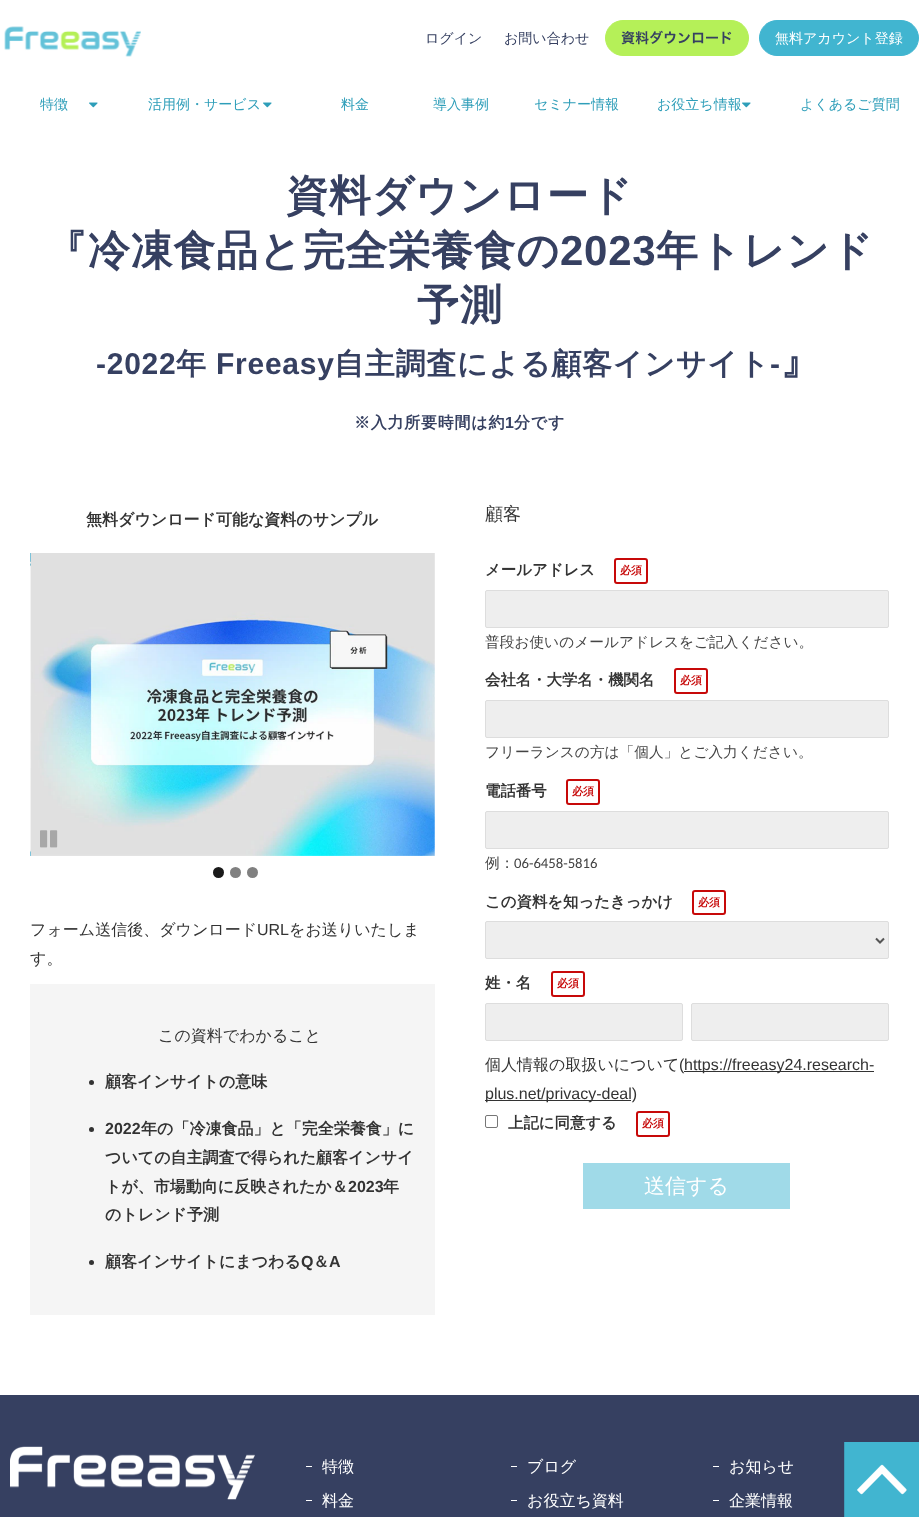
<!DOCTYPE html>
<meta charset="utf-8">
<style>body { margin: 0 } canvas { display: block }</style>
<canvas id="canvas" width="919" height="1517"></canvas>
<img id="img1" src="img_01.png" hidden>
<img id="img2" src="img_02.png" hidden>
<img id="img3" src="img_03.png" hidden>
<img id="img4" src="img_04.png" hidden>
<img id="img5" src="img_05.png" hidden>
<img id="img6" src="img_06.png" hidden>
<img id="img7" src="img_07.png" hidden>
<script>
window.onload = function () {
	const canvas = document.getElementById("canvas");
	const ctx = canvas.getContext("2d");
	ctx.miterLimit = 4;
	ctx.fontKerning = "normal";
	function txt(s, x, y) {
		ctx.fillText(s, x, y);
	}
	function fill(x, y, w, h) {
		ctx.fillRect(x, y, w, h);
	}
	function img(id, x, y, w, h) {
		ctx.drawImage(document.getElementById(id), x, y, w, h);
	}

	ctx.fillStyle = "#FFFFFF";
	fill(0, 0, 919, 1517);
	img("img1", 4, 26, 137, 31);
	ctx.fillStyle = "#B5F058";
	ctx.beginPath();
	ctx.roundRect(605.5, 20.5, 143, 35, 17.5);
	ctx.fill();
	ctx.strokeStyle = "#B5F058";
	ctx.stroke();
	ctx.fillStyle = "#41B5D0";
	ctx.beginPath();
	ctx.roundRect(759.5, 20.5, 159, 35, 17.5);
	ctx.fill();
	ctx.strokeStyle = "#41B5D0";
	ctx.stroke();
	img("img2", 89, 102, 9, 6);
	img("img2", 263, 102, 9, 6);
	img("img2", 742, 102, 9, 6);
	img("img3", 30, 553, 1, 303);
	img("img4", 30, 553, 405, 303);
	img("img5", 40, 830, 18, 18);
	ctx.fillStyle = "#1A1A1A";
	ctx.beginPath();
	ctx.arc(218.5, 872.5, 5.5, 0, Math.PI * 2);
	ctx.fill();
	ctx.fillStyle = "#808080";
	ctx.beginPath();
	ctx.arc(235.5, 872.5, 5.5, 0, Math.PI * 2);
	ctx.fill();
	ctx.beginPath();
	ctx.arc(252.5, 872.5, 5.5, 0, Math.PI * 2);
	ctx.fill();
	ctx.fillStyle = "#F5F5F5";
	fill(30, 984, 405, 331);
	ctx.fillStyle = "#333333";
	ctx.beginPath();
	ctx.arc(91.5, 1082.5, 2.5, 0, Math.PI * 2);
	ctx.fill();
	ctx.beginPath();
	ctx.arc(91.5, 1129.5, 2.5, 0, Math.PI * 2);
	ctx.fill();
	ctx.beginPath();
	ctx.arc(91.5, 1262.5, 2.5, 0, Math.PI * 2);
	ctx.fill();
	ctx.beginPath();
	ctx.roundRect(615, 559, 32, 24, 2);
	ctx.strokeStyle = "#C70909";
	ctx.lineWidth = 2;
	ctx.stroke();
	ctx.fillStyle = "#EEEEEE";
	ctx.beginPath();
	ctx.roundRect(485.5, 590.5, 403, 37, 1.5);
	ctx.fill();
	ctx.strokeStyle = "#DDDDDD";
	ctx.lineWidth = 1;
	ctx.stroke();
	ctx.beginPath();
	ctx.roundRect(675, 669, 32, 24, 2);
	ctx.strokeStyle = "#C70909";
	ctx.lineWidth = 2;
	ctx.stroke();
	ctx.beginPath();
	ctx.roundRect(485.5, 700.5, 403, 37, 1.5);
	ctx.fill();
	ctx.strokeStyle = "#DDDDDD";
	ctx.lineWidth = 1;
	ctx.stroke();
	ctx.beginPath();
	ctx.roundRect(567, 780, 32, 24, 2);
	ctx.strokeStyle = "#C70909";
	ctx.lineWidth = 2;
	ctx.stroke();
	ctx.beginPath();
	ctx.roundRect(485.5, 811.5, 403, 37, 1.5);
	ctx.fill();
	ctx.strokeStyle = "#DDDDDD";
	ctx.lineWidth = 1;
	ctx.stroke();
	ctx.beginPath();
	ctx.roundRect(693, 891, 32, 23, 2);
	ctx.strokeStyle = "#C70909";
	ctx.lineWidth = 2;
	ctx.stroke();
	ctx.beginPath();
	ctx.roundRect(485.5, 921.5, 403, 37, 1.5);
	ctx.fill();
	ctx.strokeStyle = "#DDDDDD";
	ctx.lineWidth = 1;
	ctx.stroke();
	ctx.beginPath();
	ctx.moveTo(876, 938.5);
	ctx.lineTo(880, 942.5);
	ctx.lineTo(884, 938.5);
	ctx.strokeStyle = "#555555";
	ctx.lineWidth = 2;
	ctx.stroke();
	ctx.beginPath();
	ctx.roundRect(552, 972, 32, 24, 2);
	ctx.strokeStyle = "#C70909";
	ctx.stroke();
	ctx.beginPath();
	ctx.roundRect(485.5, 1003.5, 197, 37, 1.5);
	ctx.fill();
	ctx.strokeStyle = "#DDDDDD";
	ctx.lineWidth = 1;
	ctx.stroke();
	ctx.beginPath();
	ctx.roundRect(691.5, 1003.5, 197, 37, 1.5);
	ctx.fill();
	ctx.stroke();
	ctx.fillStyle = "#333333";
	fill(684, 1071, 190, 1);
	fill(485, 1100, 146, 1);
	ctx.beginPath();
	ctx.roundRect(485.5, 1115.5, 12, 12, 1.5);
	ctx.strokeStyle = "#767676";
	ctx.stroke();
	ctx.beginPath();
	ctx.roundRect(637, 1112, 32, 24, 2);
	ctx.strokeStyle = "#C70909";
	ctx.lineWidth = 2;
	ctx.stroke();
	ctx.fillStyle = "#A0DAE8";
	fill(583, 1163, 207, 46);
	ctx.fillStyle = "#364061";
	fill(0, 1395, 919, 122);
	img("img6", 10, 1446, 245, 54);
	ctx.fillStyle = "#FFFFFF";
	fill(306, 1466, 6, 1);
	fill(306, 1500, 6, 1);
	fill(511, 1466, 6, 1);
	fill(511, 1500, 6, 1);
	fill(713, 1466, 6, 1);
	fill(713, 1500, 6, 1);
	img("img7", 844, 1442, 75, 75);
	ctx.font = "500 14px WenQuanYi Zen Hei";
	ctx.fillStyle = "#364061";
	txt("ログイン", 425, 43);
	txt("お問い合わせ", 504, 43);
	ctx.font = "600 14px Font";
	txt("資料ダウンロード", 621, 43);
	ctx.font = "500 14px WenQuanYi Zen Hei";
	ctx.fillStyle = "#FFFFFF";
	txt("無料アカウント登録", 775, 43);
	ctx.fillStyle = "#2E9EB9";
	txt("特徴", 40, 109);
	txt("活用例・サービス", 148, 109);
	txt("料金", 341, 109);
	txt("導入事例", 433, 109);
	txt("セミナー情報", 534, 109);
	txt("お役立ち情報", 657, 109);
	txt("よくあるご質問", 800, 109);
	ctx.letterSpacing = "0.75px";
	ctx.font = "bold 42px WenQuanYi Zen Hei";
	ctx.fillStyle = "#364061";
	txt("資料ダウンロード", 286, 210);
	txt("『冷凍食品と完全栄養食の", 45, 265);
	ctx.font = "bold 42px Liberation Sans";
	txt("2023", 560, 265);
	ctx.font = "bold 42px WenQuanYi Zen Hei";
	txt("年トレンド", 656, 265);
	txt("予測", 417, 319);
	ctx.font = "bold 30px Liberation Sans";
	txt("-2022", 96, 374);
	ctx.font = "bold 30px WenQuanYi Zen Hei";
	txt("年", 176, 374);
	ctx.font = "bold 30px Liberation Sans";
	txt("Freeasy", 216, 374);
	ctx.font = "bold 30px WenQuanYi Zen Hei";
	txt("自主調査による顧客インサイト", 334, 374);
	ctx.font = "bold 30px Liberation Sans";
	txt("-", 770, 374);
	ctx.font = "bold 42px WenQuanYi Zen Hei";
	txt("』", 780, 374);
	ctx.font = "bold 16px WenQuanYi Zen Hei";
	txt("※入力所要時間は約", 354, 428);
	ctx.font = "bold 16px Liberation Sans";
	txt("1", 505, 428);
	ctx.font = "bold 16px WenQuanYi Zen Hei";
	txt("分です", 514, 428);
	ctx.letterSpacing = "0px";
	ctx.fillStyle = "#333333";
	txt("無料ダウンロード可能な資料のサンプル", 86, 525);
	ctx.font = "500 16px WenQuanYi Zen Hei";
	txt("フォーム送信後、ダウンロード", 30, 935);
	ctx.font = "16px Liberation Sans";
	txt("URL", 257, 935);
	ctx.font = "500 16px WenQuanYi Zen Hei";
	txt("をお送りいたしま", 289, 935);
	txt("す。", 30, 964);
	txt("この資料でわかること", 158, 1041);
	ctx.font = "bold 16px WenQuanYi Zen Hei";
	txt("顧客インサイトの意味", 105, 1087);
	ctx.font = "bold 16px Liberation Sans";
	txt("2022", 105, 1134);
	ctx.font = "bold 16px WenQuanYi Zen Hei";
	txt("年の「冷凍食品」と「完全栄養食」に", 141, 1134);
	txt("ついての自主調査で得られた顧客インサイ", 105, 1163);
	txt("トが、市場動向に反映されたか＆", 105, 1192);
	ctx.font = "bold 16px Liberation Sans";
	txt("2023", 348, 1192);
	ctx.font = "bold 16px WenQuanYi Zen Hei";
	txt("年", 383, 1192);
	txt("のトレンド予測", 105, 1220);
	txt("顧客インサイトにまつわる", 105, 1267);
	ctx.font = "bold 16px Liberation Sans";
	txt("Q", 301, 1267);
	ctx.font = "bold 16px WenQuanYi Zen Hei";
	txt("＆", 313, 1267);
	ctx.font = "bold 16px Liberation Sans";
	txt("A", 329, 1267);
	ctx.font = "500 18px WenQuanYi Zen Hei";
	txt("顧客", 485, 520);
	ctx.font = "bold 15.4px WenQuanYi Zen Hei";
	txt("メールアドレス", 485, 575);
	ctx.font = "bold 11px WenQuanYi Zen Hei";
	ctx.fillStyle = "#C70909";
	txt("必須", 620, 574);
	ctx.font = "500 14.7px WenQuanYi Zen Hei";
	ctx.fillStyle = "#444444";
	txt("普段お使いのメールアドレスをご記入ください。", 485, 647);
	ctx.font = "bold 15.4px WenQuanYi Zen Hei";
	ctx.fillStyle = "#333333";
	txt("会社名・大学名・機関名", 485, 685);
	ctx.font = "bold 11px WenQuanYi Zen Hei";
	ctx.fillStyle = "#C70909";
	txt("必須", 680, 684);
	ctx.font = "500 14.7px WenQuanYi Zen Hei";
	ctx.fillStyle = "#444444";
	txt("フリーランスの方は「個人」とご入力ください。", 485, 757);
	ctx.font = "bold 15.4px WenQuanYi Zen Hei";
	ctx.fillStyle = "#333333";
	txt("電話番号", 485, 796);
	ctx.font = "bold 11px WenQuanYi Zen Hei";
	ctx.fillStyle = "#C70909";
	txt("必須", 572, 795);
	ctx.font = "500 14.7px WenQuanYi Zen Hei";
	ctx.fillStyle = "#444444";
	txt("例：", 485, 868);
	ctx.font = "14.7px Carlito";
	txt("06-6458-5816", 514, 868);
	ctx.font = "bold 15.4px WenQuanYi Zen Hei";
	ctx.fillStyle = "#333333";
	txt("この資料を知ったきっかけ", 485, 907);
	ctx.font = "bold 11px WenQuanYi Zen Hei";
	ctx.fillStyle = "#C70909";
	txt("必須", 698, 906);
	ctx.font = "bold 15.4px WenQuanYi Zen Hei";
	ctx.fillStyle = "#333333";
	txt("姓・名", 485, 988);
	ctx.font = "bold 11px WenQuanYi Zen Hei";
	ctx.fillStyle = "#C70909";
	txt("必須", 557, 987);
	ctx.font = "500 16px WenQuanYi Zen Hei";
	ctx.fillStyle = "#333333";
	txt("個人情報の取扱いについて", 485, 1070);
	ctx.font = "16px Liberation Sans";
	txt("(", 679, 1070);
	txt("https://freeasy24.research-", 684, 1070);
	txt("plus.net/privacy-deal)", 485, 1099);
	ctx.font = "bold 15.4px WenQuanYi Zen Hei";
	txt("上記に同意する", 508, 1128);
	ctx.font = "bold 11px WenQuanYi Zen Hei";
	ctx.fillStyle = "#C70909";
	txt("必須", 642, 1127);
	ctx.font = "500 21px WenQuanYi Zen Hei";
	ctx.fillStyle = "#FFFFFF";
	txt("送信する", 644, 1193);
	ctx.font = "500 16px WenQuanYi Zen Hei";
	txt("特徴", 322, 1472);
	txt("料金", 322, 1506);
	txt("ブログ", 527, 1472);
	txt("お役立ち資料", 527, 1506);
	txt("お知らせ", 729, 1472);
	txt("企業情報", 729, 1506);
};
</script>
